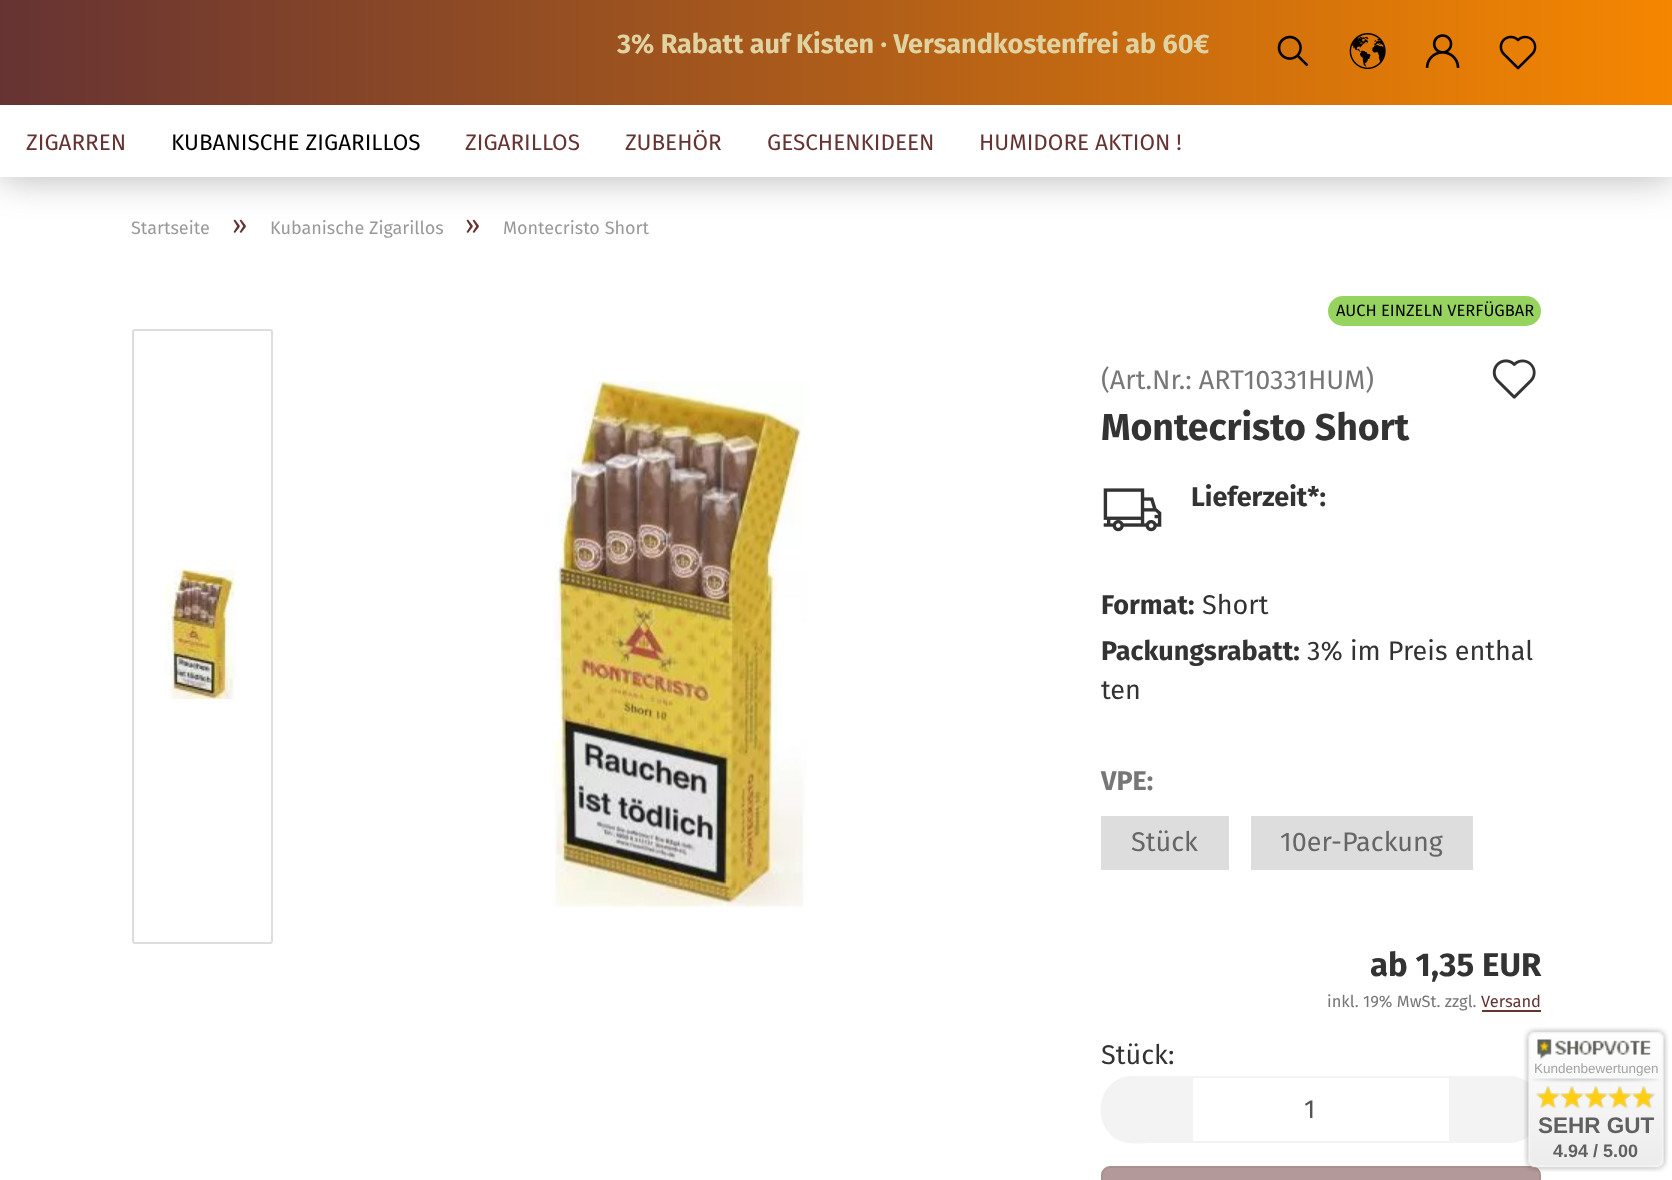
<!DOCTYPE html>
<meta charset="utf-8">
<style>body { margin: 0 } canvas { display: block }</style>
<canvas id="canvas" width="1672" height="1180"></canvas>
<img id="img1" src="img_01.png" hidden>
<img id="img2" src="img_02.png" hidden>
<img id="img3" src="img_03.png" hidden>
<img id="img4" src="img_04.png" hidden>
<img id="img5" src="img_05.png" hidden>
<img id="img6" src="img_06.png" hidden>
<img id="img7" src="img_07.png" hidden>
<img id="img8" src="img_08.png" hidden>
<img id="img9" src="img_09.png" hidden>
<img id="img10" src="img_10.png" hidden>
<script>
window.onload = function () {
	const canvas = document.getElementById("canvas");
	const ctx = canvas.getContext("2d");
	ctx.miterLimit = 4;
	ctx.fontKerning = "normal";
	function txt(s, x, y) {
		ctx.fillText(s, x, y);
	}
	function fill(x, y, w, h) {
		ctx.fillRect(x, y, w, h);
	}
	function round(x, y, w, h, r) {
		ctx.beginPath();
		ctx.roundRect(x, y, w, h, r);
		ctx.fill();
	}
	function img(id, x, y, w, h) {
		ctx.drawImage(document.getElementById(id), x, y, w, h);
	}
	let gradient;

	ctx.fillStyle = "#FFFFFF";
	fill(0, 0, 1672, 1180);
	ctx.fillStyle = "rgba(0, 0, 0, 0.3)";
	ctx.filter = "blur(19px)";
	ctx.beginPath();
	ctx.rect(0, 0, 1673, 177);
	ctx.fill();
	ctx.filter = "none";
	gradient = ctx.createLinearGradient(0, 89, 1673, 88);
	gradient.addColorStop(0, "#663333");
	gradient.addColorStop(1, "#F58600");
	ctx.fillStyle = gradient;
	fill(0, 0, 1672, 105);
	img("img1", 1277, 35, 32, 32);
	img("img2", 1349, 33, 37, 37);
	img("img3", 1425, 34, 35, 34);
	img("img4", 1499, 35, 38, 35);
	ctx.fillStyle = "#FFFFFF";
	fill(0, 105, 1672, 72);
	ctx.beginPath();
	ctx.roundRect(133, 330, 139, 613, 2);
	ctx.strokeStyle = "#DDDDDD";
	ctx.lineWidth = 2;
	ctx.stroke();
	img("img5", 164, 569, 72, 130);
	img("img6", 552, 380, 255, 527);
	ctx.fillStyle = "#96D35F";
	round(1328, 296, 213, 30, 15);
	img("img7", 1492, 359, 44, 40);
	img("img8", 1103, 488, 59, 44);
	ctx.fillStyle = "#DDDDDD";
	fill(1101, 816, 128, 54);
	fill(1251, 816, 222, 54);
	ctx.fillStyle = "#663333";
	fill(1482, 1010, 59, 2);
	ctx.fillStyle = "#F3F3F3";
	ctx.beginPath();
	ctx.roundRect(1101, 1076, 90, 67, [32, 0, 0, 32]);
	ctx.fill();
	ctx.beginPath();
	ctx.moveTo(1132, 1076);
	ctx.lineTo(1191, 1076);
	ctx.lineTo(1191, 1143);
	ctx.lineTo(1152, 1143);
	ctx.bezierCurveTo(1142, 1143, 1130, 1145, 1120, 1141);
	ctx.bezierCurveTo(1089, 1127, 1097, 1076, 1132, 1076);
	ctx.closePath();
	ctx.moveTo(1132, 1077);
	ctx.lineTo(1191, 1077);
	ctx.lineTo(1191, 1142);
	ctx.lineTo(1152, 1142);
	ctx.bezierCurveTo(1142, 1142, 1130, 1143, 1121, 1139);
	ctx.bezierCurveTo(1091, 1127, 1099, 1077, 1132, 1077);
	ctx.closePath();
	ctx.fill("evenodd");
	ctx.beginPath();
	ctx.roundRect(1451, 1076, 90, 67, [0, 32, 32, 0]);
	ctx.fill();
	ctx.beginPath();
	ctx.moveTo(1450, 1076);
	ctx.lineTo(1509, 1076);
	ctx.bezierCurveTo(1526, 1076, 1540, 1090, 1540, 1107);
	ctx.lineTo(1540, 1112);
	ctx.bezierCurveTo(1540, 1129, 1526, 1143, 1509, 1143);
	ctx.lineTo(1450, 1143);
	ctx.closePath();
	ctx.moveTo(1450, 1077);
	ctx.lineTo(1509, 1077);
	ctx.bezierCurveTo(1526, 1077, 1539, 1090, 1539, 1107);
	ctx.lineTo(1539, 1112);
	ctx.bezierCurveTo(1539, 1128, 1526, 1142, 1509, 1142);
	ctx.lineTo(1450, 1142);
	ctx.closePath();
	ctx.fill("evenodd");
	ctx.strokeStyle = "#F3F3F3";
	ctx.strokeRect(1192, 1077, 258, 65);
	ctx.fillStyle = "#B39999";
	ctx.beginPath();
	ctx.roundRect(1102, 1167, 438, 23, 8);
	ctx.fill();
	ctx.strokeStyle = "#AA9191";
	ctx.stroke();
	img("img9", 1523, 1027, 146, 145);
	img("img10", 1536, 1086, 117, 23);
	ctx.font = "bold 27px Fira Sans";
	ctx.fillStyle = "#E0D3A2";
	txt("3% Rabatt auf Kisten · Versandkostenfrei ab 60€", 617, 53);
	ctx.font = "22.5px Fira Sans";
	ctx.fillStyle = "#663333";
	txt("ZIGARREN", 26, 150);
	ctx.fillStyle = "#000000";
	txt("KUBANISCHE ZIGARILLOS", 171, 150);
	ctx.fillStyle = "#663333";
	txt("ZIGARILLOS", 465, 150);
	txt("ZUBEHÖR", 625, 150);
	txt("GESCHENKIDEEN", 767, 150);
	txt("HUMIDORE AKTION !", 979, 150);
	ctx.font = "18px Fira Sans";
	ctx.fillStyle = "#999999";
	txt("Startseite", 131, 234);
	ctx.font = "27px Fira Sans";
	ctx.fillStyle = "#663333";
	txt("»", 232, 234);
	ctx.font = "18px Fira Sans";
	ctx.fillStyle = "#999999";
	txt("Kubanische Zigarillos", 270, 234);
	ctx.font = "27px Fira Sans";
	ctx.fillStyle = "#663333";
	txt("»", 465, 234);
	ctx.font = "18px Fira Sans";
	ctx.fillStyle = "#999999";
	txt("Montecristo Short", 503, 234);
	ctx.font = "16.5px Fira Sans";
	ctx.fillStyle = "#000000";
	txt("AUCH EINZELN VERFÜGBAR", 1336, 316);
	ctx.font = "27px Fira Sans";
	ctx.fillStyle = "#777777";
	txt("(Art.Nr.: ART10331HUM)", 1101, 389);
	ctx.font = "bold 37.5px Fira Sans";
	ctx.fillStyle = "#333333";
	txt("Montecristo Short", 1101, 440);
	ctx.font = "bold 27px Fira Sans";
	txt("Lieferzeit*:", 1191, 506);
	txt("Format:", 1101, 614);
	ctx.font = "27px Fira Sans";
	txt("Short", 1202, 614);
	ctx.font = "bold 27px Fira Sans";
	txt("Packungsrabatt:", 1101, 660);
	ctx.font = "27px Fira Sans";
	txt("3% im Preis enthal", 1307, 660);
	txt("ten", 1101, 699);
	ctx.font = "bold 27px Fira Sans";
	ctx.fillStyle = "#777777";
	txt("VPE:", 1101, 790);
	ctx.font = "27px Fira Sans";
	ctx.fillStyle = "#666666";
	txt("Stück", 1131, 851);
	txt("10er-Packung", 1280, 851);
	ctx.font = "bold 33px Fira Sans";
	ctx.fillStyle = "#333333";
	txt("ab 1,35 EUR", 1370, 976);
	ctx.font = "16.5px Fira Sans";
	ctx.fillStyle = "#777777";
	txt("inkl. 19% MwSt. zzgl.", 1327, 1007);
	ctx.fillStyle = "#663333";
	txt("Versand", 1481, 1007);
	ctx.font = "27px Fira Sans";
	ctx.fillStyle = "#333333";
	txt("Stück:", 1101, 1064);
	ctx.font = "26px Fira Sans";
	ctx.fillStyle = "#555555";
	txt("1", 1304, 1118);
	ctx.font = "13.5px Liberation Sans";
	ctx.fillStyle = "#A4A4A4";
	txt("Kundenbewertungen", 1534, 1073);
	ctx.font = "bold 22.5px Liberation Sans";
	ctx.fillStyle = "#606060";
	txt("SEHR GUT", 1538, 1133);
	ctx.font = "bold 18px Liberation Sans";
	txt("4.94 / 5.00", 1553, 1157);
};
</script>
